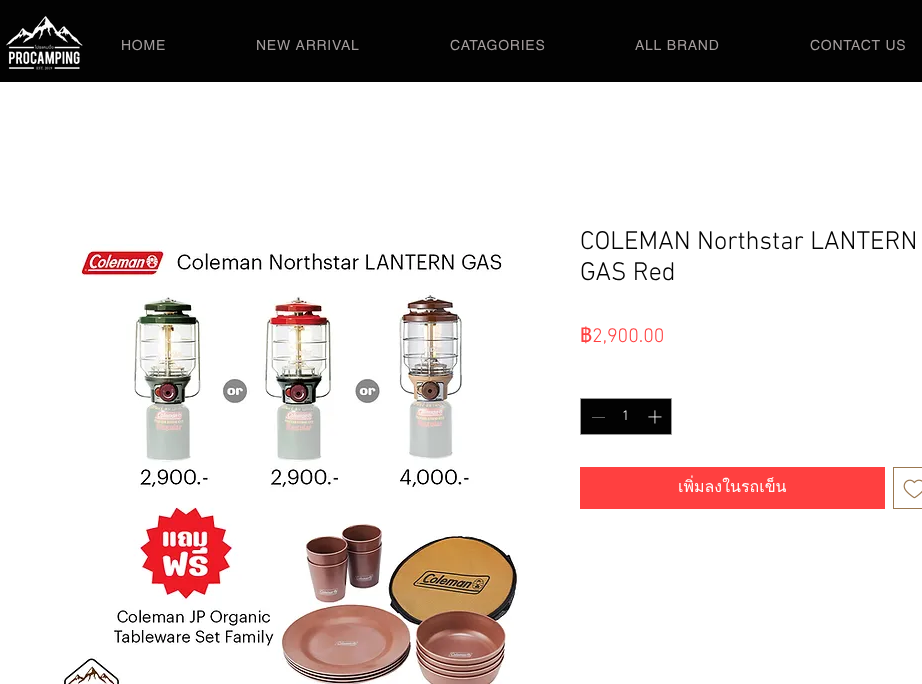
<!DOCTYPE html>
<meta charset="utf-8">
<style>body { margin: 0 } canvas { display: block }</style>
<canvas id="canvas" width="922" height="684"></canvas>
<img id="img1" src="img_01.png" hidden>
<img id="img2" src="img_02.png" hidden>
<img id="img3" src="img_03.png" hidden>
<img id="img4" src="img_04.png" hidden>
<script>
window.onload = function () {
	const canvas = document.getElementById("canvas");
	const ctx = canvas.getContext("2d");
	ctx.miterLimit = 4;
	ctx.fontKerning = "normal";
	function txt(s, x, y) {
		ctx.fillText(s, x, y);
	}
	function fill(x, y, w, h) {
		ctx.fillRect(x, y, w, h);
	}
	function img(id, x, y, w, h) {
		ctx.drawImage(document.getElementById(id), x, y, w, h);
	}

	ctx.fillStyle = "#FFFFFF";
	fill(0, 0, 922, 684);
	ctx.fillStyle = "#020202";
	fill(0, 0, 922, 82);
	img("img1", 6, 16, 77, 54);
	img("img2", 62, 244, 457, 440);
	ctx.beginPath();
	ctx.rect(580.5, 398.5, 91, 36);
	ctx.fill();
	ctx.strokeStyle = "#9A9A9A";
	ctx.stroke();
	ctx.fillStyle = "#656565";
	fill(592, 417, 13, 1);
	img("img3", 648, 410, 14, 14);
	ctx.fillStyle = "#FF4040";
	fill(580, 467, 305, 42);
	ctx.strokeStyle = "#9B7750";
	ctx.strokeRect(893.5, 467.5, 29, 41);
	img("img4", 903, 479, 19, 20);
	ctx.letterSpacing = "0.75px";
	ctx.font = "14px helvetica";
	ctx.fillStyle = "#A29C9C";
	txt("HOME", 121, 50);
	txt("NEW ARRIVAL", 256, 50);
	txt("CATAGORIES", 450, 50);
	txt("ALL BRAND", 635, 50);
	txt("CONTACT US", 810, 50);
	ctx.letterSpacing = "0px";
	ctx.font = "300 26px 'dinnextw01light'";
	ctx.fillStyle = "#020202";
	txt("COLEMAN Northstar LANTERN", 580, 249);
	txt("GAS Red", 580, 280);
	ctx.font = "20px Loma";
	ctx.fillStyle = "#FF4040";
	txt("฿", 580, 342);
	ctx.font = "300 20px 'dinnextw01light'";
	txt("2,900.00", 592, 342);
	ctx.font = "300 14px 'dinnextw01light'";
	ctx.fillStyle = "#FFFFFF";
	txt("1", 622, 420);
	ctx.font = "16px Loma";
	txt("เพิ่มลงในรถเข็น", 678, 492);
};
</script>
